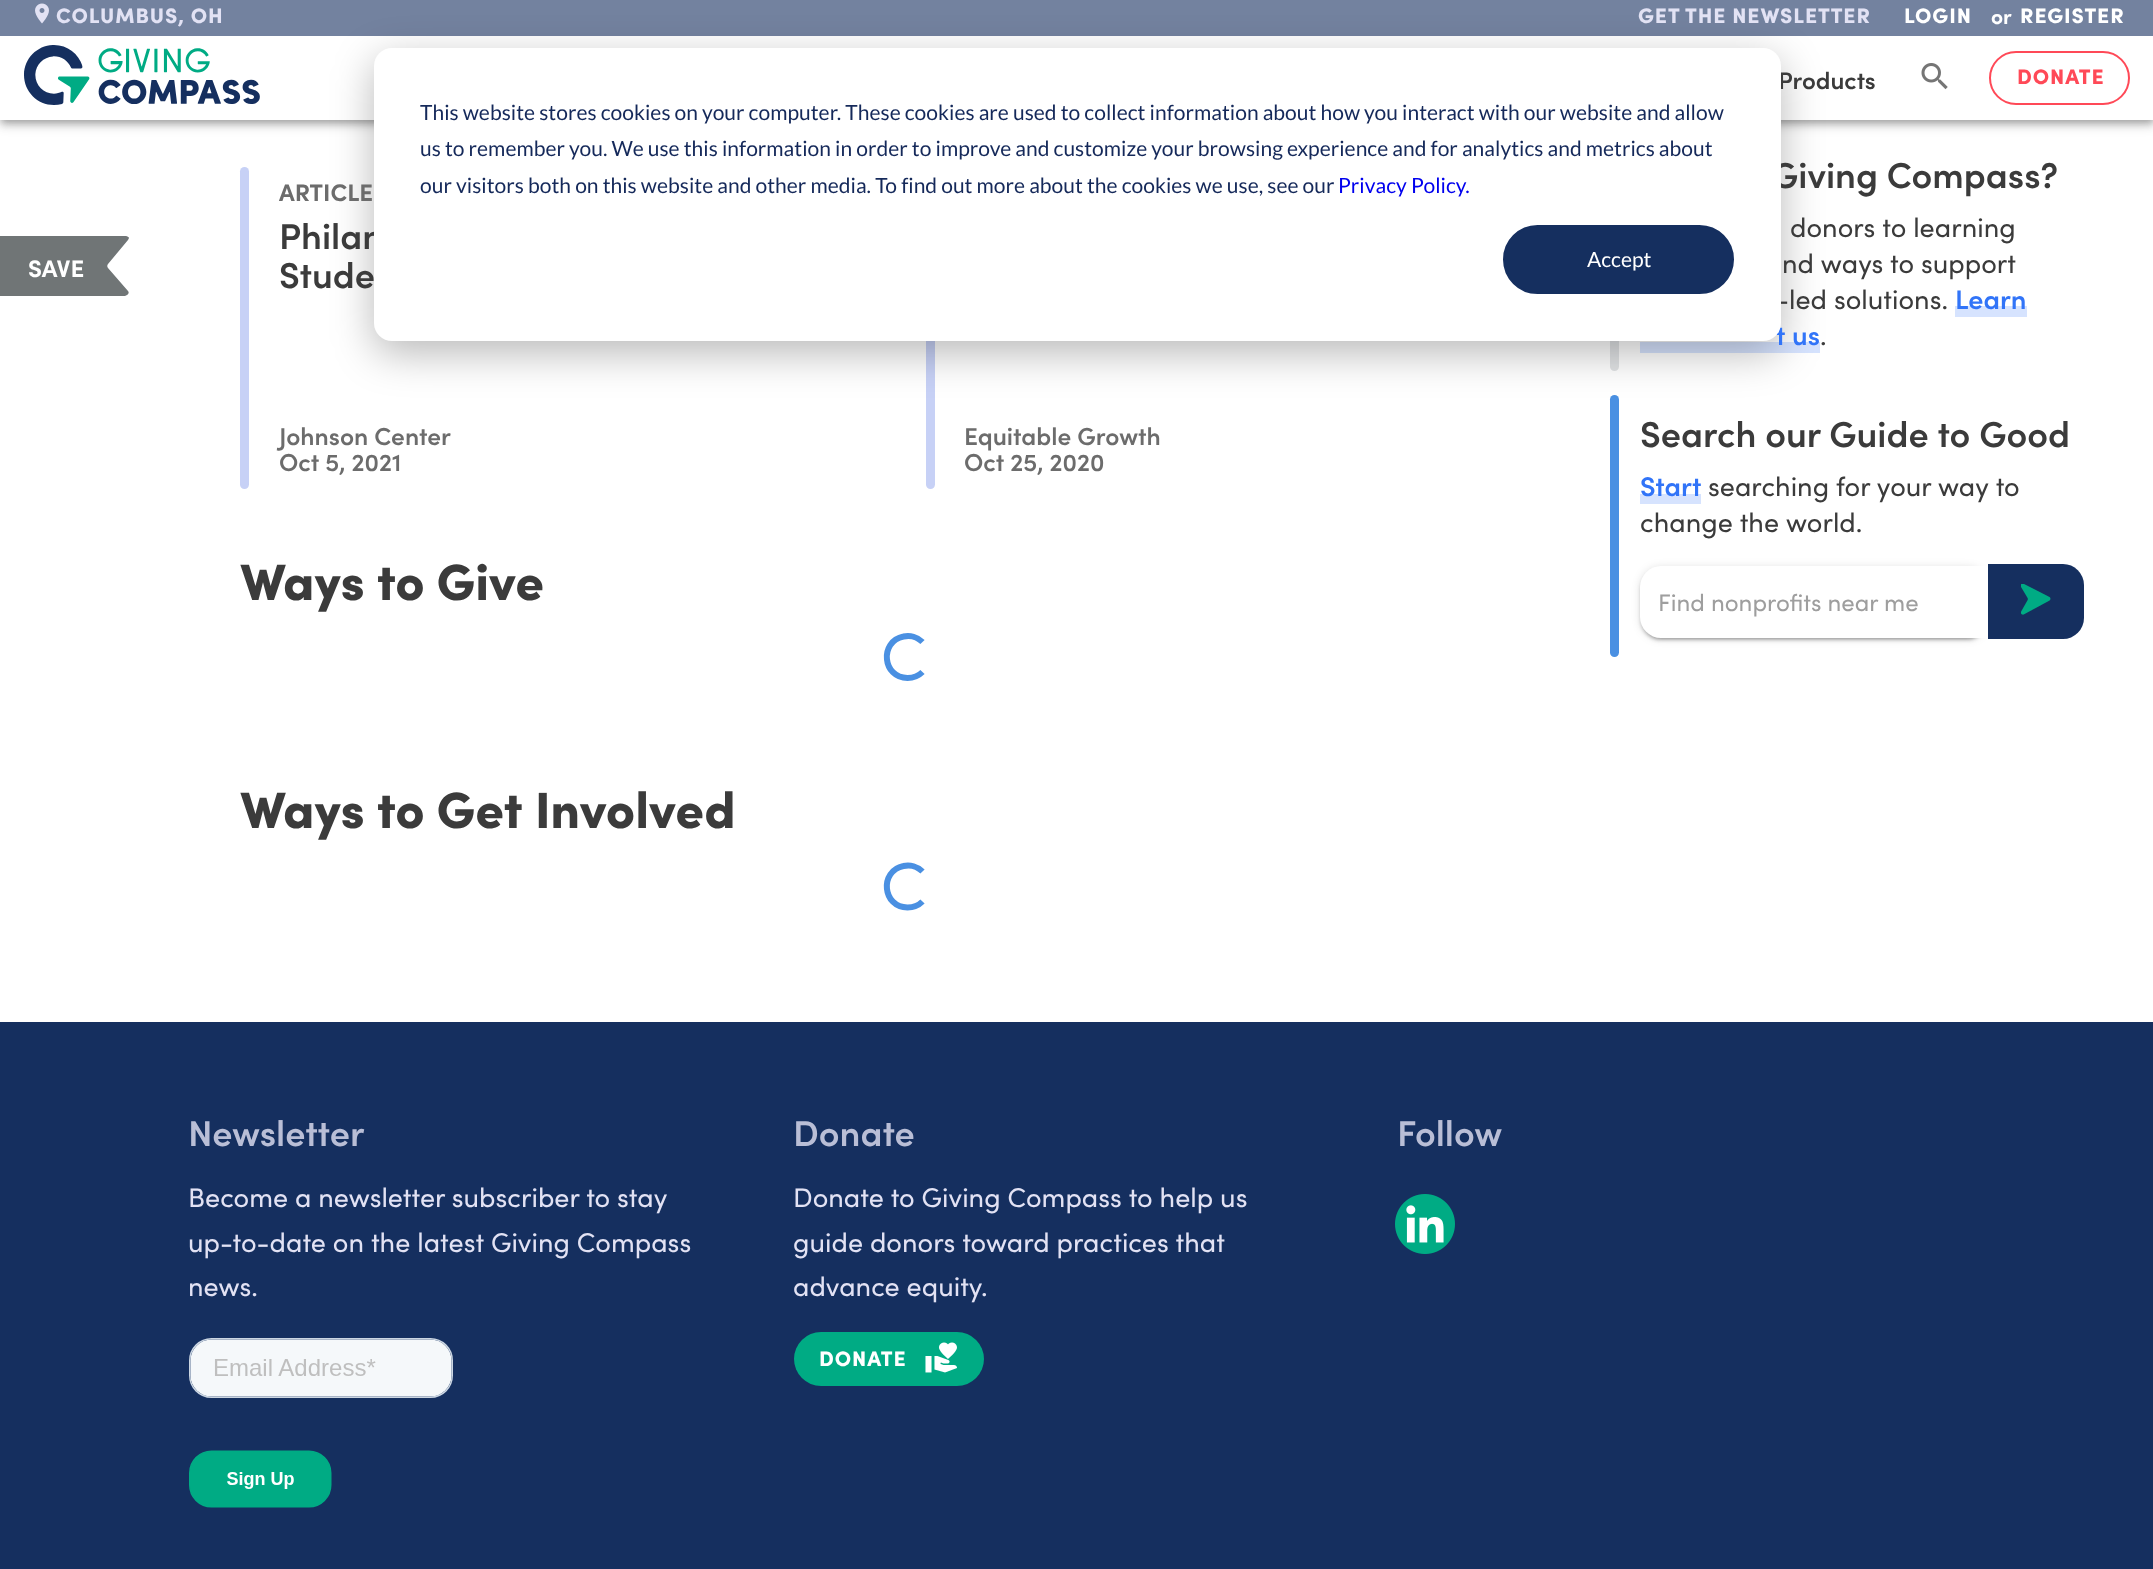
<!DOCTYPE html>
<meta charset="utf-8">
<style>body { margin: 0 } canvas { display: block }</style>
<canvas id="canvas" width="2153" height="1569"></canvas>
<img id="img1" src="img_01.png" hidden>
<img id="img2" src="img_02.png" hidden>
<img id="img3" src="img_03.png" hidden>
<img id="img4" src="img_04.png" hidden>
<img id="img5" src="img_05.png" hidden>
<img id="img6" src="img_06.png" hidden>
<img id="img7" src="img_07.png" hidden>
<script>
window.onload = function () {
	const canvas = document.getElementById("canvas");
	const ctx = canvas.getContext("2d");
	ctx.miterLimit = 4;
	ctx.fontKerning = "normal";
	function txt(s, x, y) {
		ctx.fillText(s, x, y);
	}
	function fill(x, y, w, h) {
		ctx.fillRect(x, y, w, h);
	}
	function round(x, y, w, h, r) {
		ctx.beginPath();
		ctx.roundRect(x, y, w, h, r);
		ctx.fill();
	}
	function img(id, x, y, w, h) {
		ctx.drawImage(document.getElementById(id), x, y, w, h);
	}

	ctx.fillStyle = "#FFFFFF";
	fill(0, 0, 2153, 1569);
	ctx.fillStyle = "#E1E3E5";
	round(1610, 135, 9, 236, 4.5);
	ctx.fillStyle = "rgba(0, 0, 0, 0.12)";
	ctx.filter = "blur(7.5px)";
	ctx.beginPath();
	ctx.rect(0, 2, 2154, 120);
	ctx.fill();
	ctx.filter = "none";
	ctx.fillStyle = "rgba(0, 0, 0, 0.14)";
	ctx.filter = "blur(4px)";
	ctx.beginPath();
	ctx.rect(0, 6, 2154, 120);
	ctx.fill();
	ctx.filter = "none";
	ctx.fillStyle = "rgba(0, 0, 0, 0.2)";
	ctx.filter = "blur(3px)";
	ctx.beginPath();
	ctx.rect(2, 5, 2151, 117);
	ctx.fill();
	ctx.filter = "none";
	ctx.fillStyle = "#FFFFFF";
	fill(0, 36, 2153, 84);
	ctx.fillStyle = "#73829F";
	fill(0, 0, 2153, 36);
	img("img1", 35, 3, 14, 21);
	img("img2", 24, 45, 236, 60);
	img("img3", 1921, 63, 27, 27);
	ctx.beginPath();
	ctx.roundRect(1990, 52, 139, 52, 26);
	ctx.strokeStyle = "#FF4957";
	ctx.lineWidth = 2;
	ctx.stroke();
	ctx.fillStyle = "#707576";
	ctx.beginPath();
	ctx.moveTo(125, 296);
	ctx.lineTo(-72, 296);
	ctx.lineTo(-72, 236);
	ctx.lineTo(126, 236);
	ctx.bezierCurveTo(127, 236, 129, 237, 129, 238);
	ctx.lineTo(128, 240);
	ctx.lineTo(108, 264);
	ctx.bezierCurveTo(107, 265, 107, 267, 108, 268);
	ctx.lineTo(128, 291);
	ctx.bezierCurveTo(129, 292, 129, 294, 127, 295);
	ctx.closePath();
	ctx.fill("evenodd");
	ctx.fillStyle = "#C7D1F6";
	round(240, 167, 9, 322, 4.5);
	round(926, 167, 9, 322, 4.5);
	ctx.beginPath();
	ctx.moveTo(922.5, 672);
	ctx.bezierCurveTo(918.5, 676, 913, 678, 907.5, 678);
	ctx.bezierCurveTo(882.5, 678, 879, 641.5, 903.5, 636.5);
	ctx.bezierCurveTo(910, 635, 917.5, 637, 922.5, 642);
	ctx.strokeStyle = "#4A90E2";
	ctx.lineWidth = 6;
	ctx.stroke();
	ctx.beginPath();
	ctx.moveTo(922.5, 901.5);
	ctx.bezierCurveTo(918.5, 905.5, 913, 907.5, 907.5, 907.5);
	ctx.bezierCurveTo(882.5, 907.5, 879, 871, 903.5, 866);
	ctx.bezierCurveTo(910, 864.5, 917.5, 866.5, 922.5, 871.5);
	ctx.stroke();
	ctx.fillStyle = "#D6E3FE";
	fill(1955, 306, 72, 11);
	fill(1640, 342, 180, 11);
	ctx.fillStyle = "#4A90E2";
	round(1610, 395, 9, 262, 4.5);
	ctx.fillStyle = "#D6E3FE";
	fill(1640, 494, 61, 10);
	ctx.fillStyle = "rgba(0, 0, 0, 0.12)";
	ctx.filter = "blur(4px)";
	ctx.beginPath();
	ctx.roundRect(1640, 567, 348, 72, 21);
	ctx.fill();
	ctx.filter = "none";
	ctx.fillStyle = "rgba(0, 0, 0, 0.14)";
	ctx.filter = "blur(1.5px)";
	ctx.beginPath();
	ctx.roundRect(1640, 569, 348, 72, 21);
	ctx.fill();
	ctx.filter = "none";
	ctx.fillStyle = "rgba(0, 0, 0, 0.2)";
	ctx.filter = "blur(1px)";
	ctx.beginPath();
	ctx.roundRect(1643, 573, 342, 66, 18);
	ctx.fill();
	ctx.filter = "none";
	ctx.fillStyle = "#FFFFFF";
	ctx.beginPath();
	ctx.roundRect(1640, 566, 348, 72, [21, 0, 0, 21]);
	ctx.fill();
	ctx.fillStyle = "#152F5F";
	ctx.beginPath();
	ctx.roundRect(1988, 564, 96, 75, [0, 21, 21, 0]);
	ctx.fill();
	img("img4", 2021, 584, 30, 31);
	fill(0, 1022, 2153, 547);
	img("img5", 189, 1338, 264, 170);
	ctx.fillStyle = "#00AB84";
	round(794, 1332, 190, 54, 27);
	img("img6", 925, 1342, 32, 31);
	ctx.fillStyle = "#FFFFFF";
	ctx.beginPath();
	ctx.arc(1425, 1226, 27, 0, Math.PI * 2);
	ctx.fill();
	img("img7", 1395, 1194, 60, 60);
	ctx.fillStyle = "rgba(0, 0, 0, 0.28)";
	ctx.filter = "blur(21px)";
	ctx.beginPath();
	ctx.roundRect(374, 60, 1407, 293, 18);
	ctx.fill();
	ctx.filter = "none";
	ctx.letterSpacing = "0.9px";
	ctx.font = "900 21px Sofia";
	ctx.fillStyle = "#E2E2F4";
	txt("COLUMBUS, OH", 56, 23);
	txt("GET THE NEWSLETTER", 1638, 23);
	ctx.fillStyle = "#FFFFFF";
	txt("LOGIN", 1904, 23);
	ctx.letterSpacing = "0px";
	ctx.font = "bold 21px Sofia";
	txt("or", 1991, 24);
	ctx.letterSpacing = "0.9px";
	ctx.font = "900 21px Sofia";
	txt("REGISTER", 2020, 23);
	ctx.letterSpacing = "0px";
	ctx.font = "600 24px Sofia";
	ctx.fillStyle = "#3B3B3B";
	txt("Products", 1778, 89);
	ctx.letterSpacing = "0.9px";
	ctx.font = "900 21px Sofia";
	ctx.fillStyle = "#FF4957";
	txt("DONATE", 2017, 84);
	ctx.letterSpacing = "0px";
	ctx.font = "bold 24px Sofia";
	ctx.fillStyle = "#FFFFFF";
	txt("SAVE", 28, 277);
	ctx.fillStyle = "#6C6C6C";
	txt("ARTICLE", 279, 201);
	ctx.font = "600 36px Sofia";
	ctx.fillStyle = "#3B3B3B";
	txt("Philan", 279, 249);
	txt("Stude", 279, 288);
	ctx.font = "600 24.5px Sofia";
	ctx.fillStyle = "#6C6C6C";
	txt("Johnson Center", 279, 445);
	txt("Oct 5, 2021", 279, 471);
	txt("Equitable Growth", 964, 445);
	txt("Oct 25, 2020", 964, 471);
	ctx.font = "900 51px Sofia";
	ctx.fillStyle = "#3B3B3B";
	txt("Ways to Give", 240, 600);
	txt("Ways to Get Involved", 240, 828);
	ctx.font = "600 36px Sofia";
	txt("Giving Compass?", 1771, 188);
	ctx.letterSpacing = "0.03px";
	ctx.font = "27px Sofia";
	txt("donors to learning", 1790, 237);
	txt("nd ways to support", 1782, 273);
	txt("-led solutions.", 1776, 309);
	ctx.font = "600 27px Sofia";
	ctx.fillStyle = "#3174F8";
	txt("Learn", 1955, 309);
	txt("t us", 1776, 345);
	ctx.font = "27px Sofia";
	ctx.fillStyle = "#3B3B3B";
	txt(".", 1820, 345);
	ctx.letterSpacing = "0px";
	ctx.font = "600 36px Sofia";
	txt("Search our Guide to Good", 1640, 447);
	ctx.letterSpacing = "0.03px";
	ctx.font = "600 27px Sofia";
	ctx.fillStyle = "#3174F8";
	txt("Start", 1640, 496);
	ctx.font = "27px Sofia";
	ctx.fillStyle = "#3B3B3B";
	txt("searching for your way to", 1708, 496);
	txt("change the world.", 1640, 532);
	ctx.letterSpacing = "0px";
	ctx.font = "24px Sofia";
	ctx.fillStyle = "#9E9E9E";
	txt("Find nonprofits near me", 1658, 611);
	ctx.font = "600 36px Sofia";
	ctx.fillStyle = "#B9BED6";
	txt("Newsletter", 188, 1146);
	ctx.letterSpacing = "0.03px";
	ctx.font = "27px Sofia";
	ctx.fillStyle = "#E2E2F4";
	txt("Become a newsletter subscriber to stay", 188, 1207);
	txt("up-to-date on the latest Giving Compass", 188, 1252);
	txt("news.", 188, 1296);
	ctx.letterSpacing = "0px";
	ctx.font = "600 36px Sofia";
	ctx.fillStyle = "#B9BED6";
	txt("Donate", 793, 1146);
	ctx.letterSpacing = "0.03px";
	ctx.font = "27px Sofia";
	ctx.fillStyle = "#E2E2F4";
	txt("Donate to Giving Compass to help us", 793, 1207);
	txt("guide donors toward practices that", 793, 1252);
	txt("advance equity.", 793, 1296);
	ctx.letterSpacing = "0.9px";
	ctx.font = "900 21px Sofia";
	ctx.fillStyle = "#FFFFFF";
	txt("DONATE", 819, 1366);
	ctx.letterSpacing = "0px";
	ctx.font = "600 36px Sofia";
	ctx.fillStyle = "#B9BED6";
	txt("Follow", 1397, 1146);
	ctx.fillStyle = "#FFFFFF";
	round(374, 48, 1407, 293, 18);
	ctx.letterSpacing = "0.03px";
	ctx.font = "21px Lato";
	ctx.fillStyle = "#15295A";
	txt("This website stores cookies on your computer. These cookies are used to collect information about how you interact with our website and allow", 420, 120);
	txt("us to remember you. We use this information in order to improve and customize your browsing experience and for analytics and metrics about", 420, 156);
	txt("our visitors both on this website and other media. To find out more about the cookies we use, see our", 420, 193);
	ctx.fillStyle = "#0000EE";
	txt("Privacy Policy.", 1338, 193);
	ctx.fillStyle = "#152F5F";
	ctx.beginPath();
	ctx.roundRect(1504, 226, 229, 67, 33.5);
	ctx.fill();
	ctx.strokeStyle = "#152F5F";
	ctx.lineWidth = 2;
	ctx.stroke();
	ctx.letterSpacing = "0px";
	ctx.fillStyle = "#FFFFFF";
	txt("Accept", 1587, 267);
};
</script>
